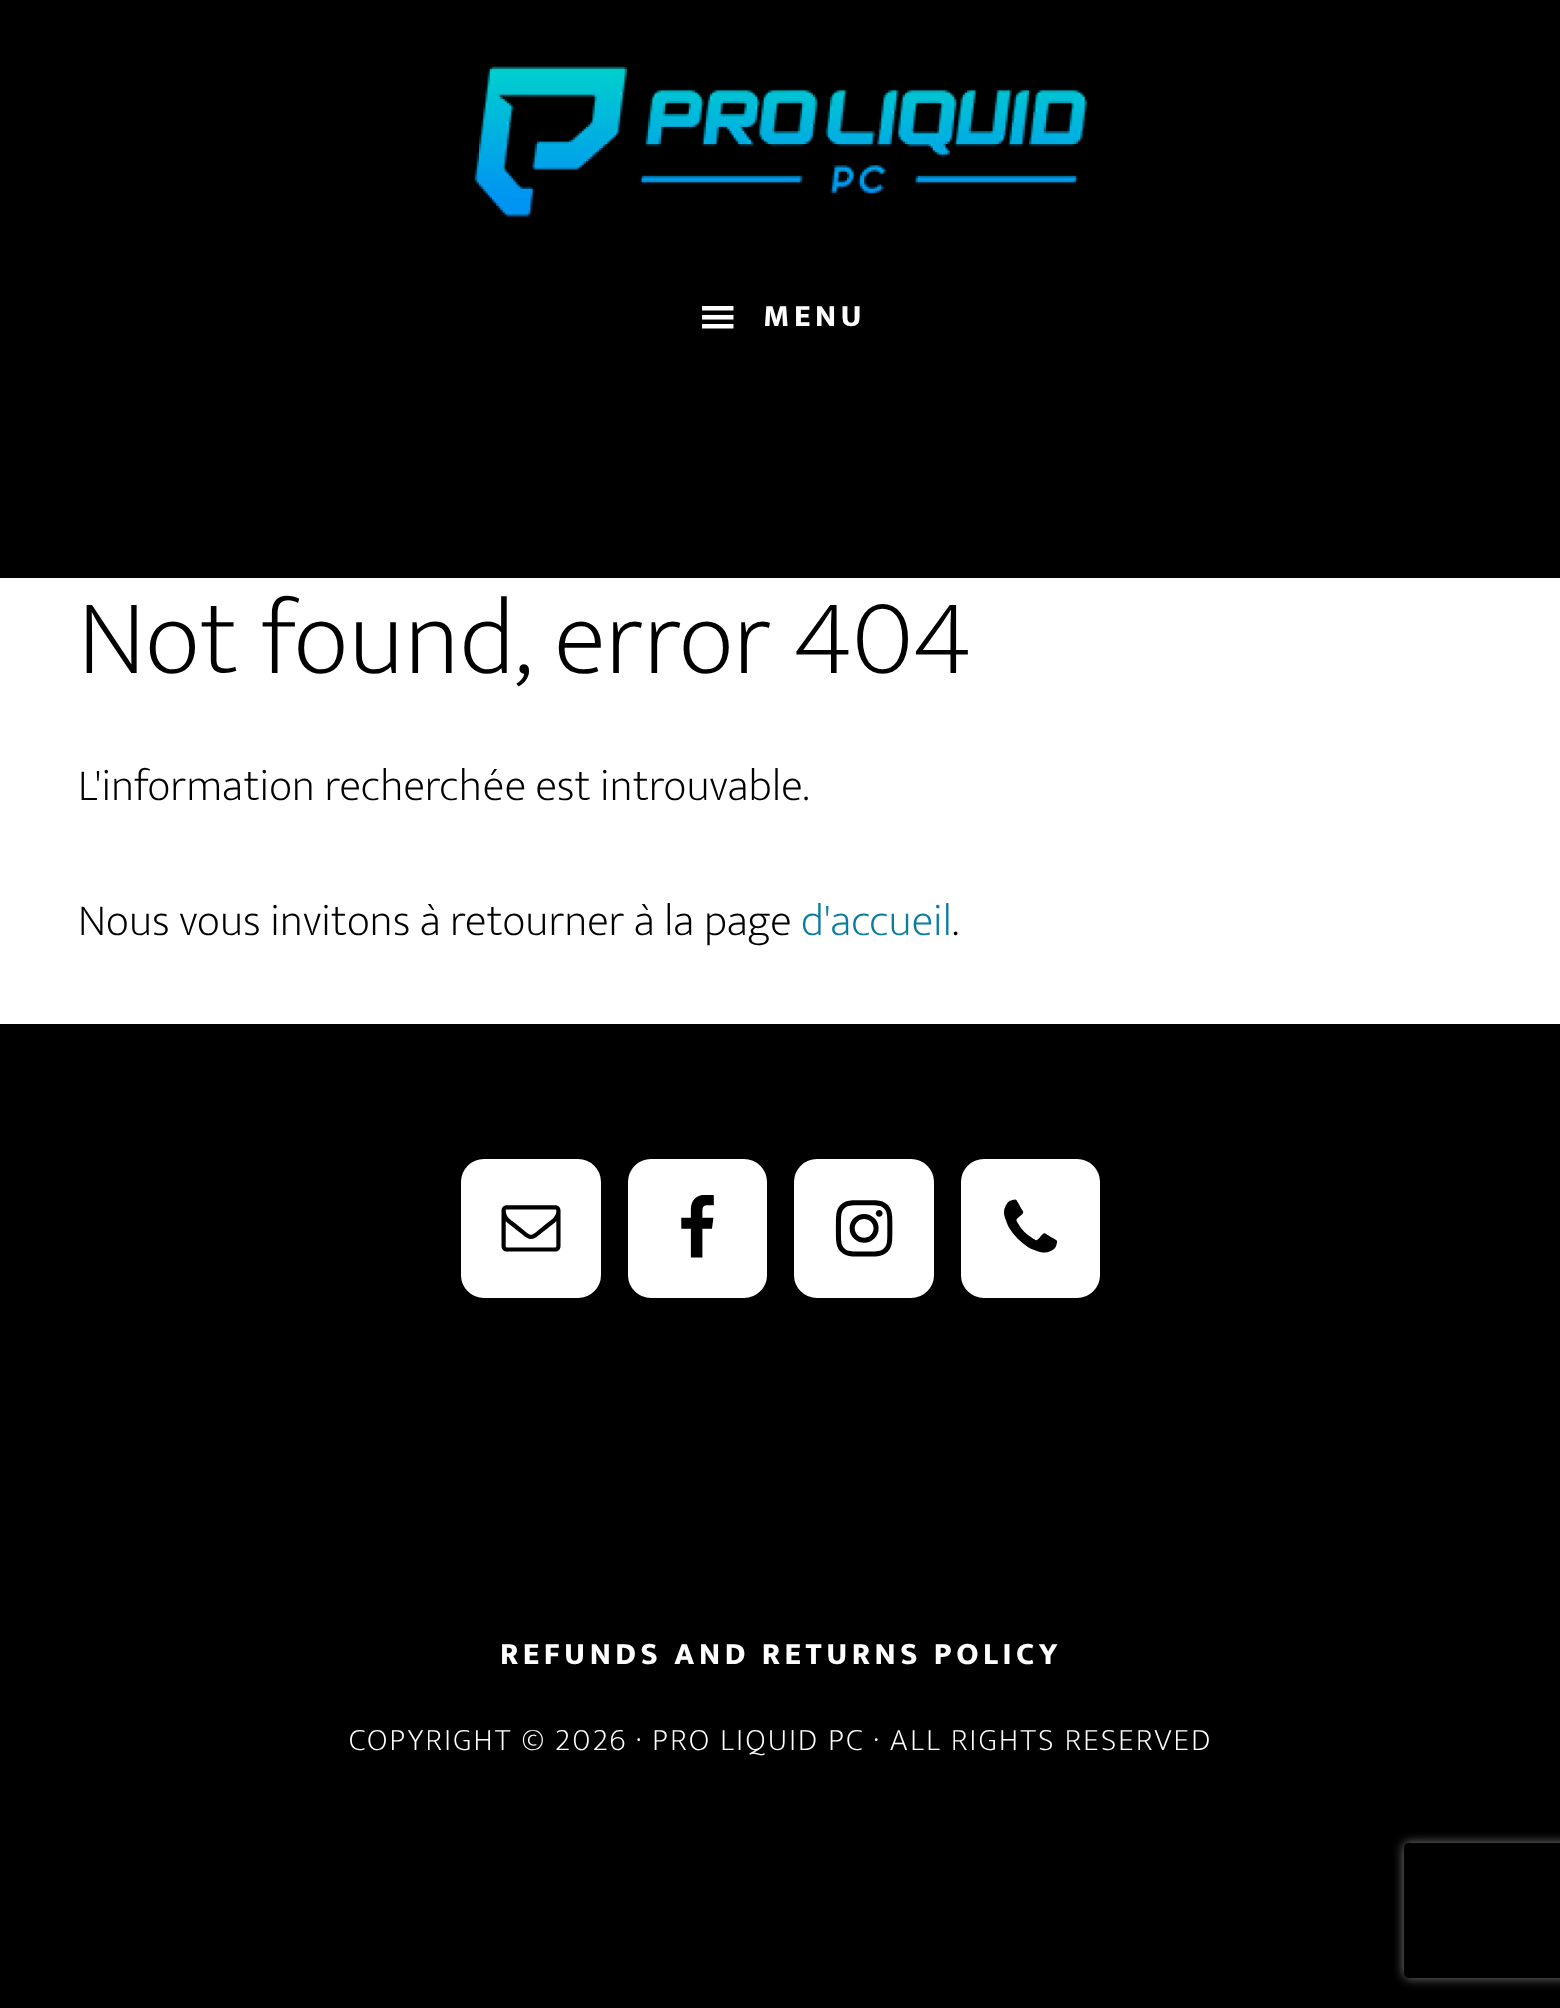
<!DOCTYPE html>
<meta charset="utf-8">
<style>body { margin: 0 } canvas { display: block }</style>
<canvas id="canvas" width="1560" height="2008"></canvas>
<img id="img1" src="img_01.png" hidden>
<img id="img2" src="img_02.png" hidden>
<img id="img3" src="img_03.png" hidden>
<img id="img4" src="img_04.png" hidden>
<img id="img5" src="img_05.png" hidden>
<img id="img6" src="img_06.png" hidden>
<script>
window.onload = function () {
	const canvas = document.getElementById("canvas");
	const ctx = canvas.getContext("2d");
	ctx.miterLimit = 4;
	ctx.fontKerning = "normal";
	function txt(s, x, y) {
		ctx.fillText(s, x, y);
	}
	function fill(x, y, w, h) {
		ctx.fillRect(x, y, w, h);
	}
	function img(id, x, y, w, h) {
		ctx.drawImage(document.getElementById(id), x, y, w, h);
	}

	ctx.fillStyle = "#000000";
	fill(0, 0, 1560, 2008);
	img("img1", 474, 66, 613, 151);
	img("img2", 702, 306, 32, 23);
	ctx.fillStyle = "#FFFFFF";
	fill(0, 578, 1560, 446);
	ctx.beginPath();
	ctx.roundRect(462, 1160, 138, 137, 22);
	ctx.fill();
	ctx.strokeStyle = "#FFFFFF";
	ctx.lineWidth = 2;
	ctx.stroke();
	img("img3", 501, 1205, 60, 47);
	ctx.beginPath();
	ctx.roundRect(629, 1160, 137, 137, 22);
	ctx.fill();
	ctx.stroke();
	img("img4", 681, 1195, 33, 63);
	ctx.beginPath();
	ctx.roundRect(795, 1160, 138, 137, 22);
	ctx.fill();
	ctx.stroke();
	img("img5", 835, 1200, 58, 57);
	ctx.beginPath();
	ctx.roundRect(962, 1160, 137, 137, 22);
	ctx.fill();
	ctx.stroke();
	img("img6", 1004, 1199, 53, 54);
	ctx.save();
	ctx.beginPath();
	ctx.moveTo(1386, 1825);
	ctx.lineTo(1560, 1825);
	ctx.lineTo(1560, 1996);
	ctx.lineTo(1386, 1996);
	ctx.closePath();
	ctx.moveTo(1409, 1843);
	ctx.lineTo(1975, 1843);
	ctx.bezierCurveTo(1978, 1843, 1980, 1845, 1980, 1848);
	ctx.lineTo(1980, 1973);
	ctx.bezierCurveTo(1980, 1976, 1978, 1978, 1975, 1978);
	ctx.lineTo(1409, 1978);
	ctx.bezierCurveTo(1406, 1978, 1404, 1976, 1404, 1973);
	ctx.lineTo(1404, 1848);
	ctx.bezierCurveTo(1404, 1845, 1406, 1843, 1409, 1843);
	ctx.closePath();
	ctx.clip("evenodd");
	ctx.fillStyle = "#808080";
	ctx.filter = "blur(5.5px)";
	ctx.beginPath();
	ctx.roundRect(1404, 1843, 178, 135, 5);
	ctx.fill();
	ctx.filter = "none";
	ctx.restore();
	ctx.letterSpacing = "4.5px";
	ctx.font = "800 31.5px Mukta";
	txt("MENU", 763, 326);
	ctx.letterSpacing = "0px";
	ctx.font = "200 108px Mukta";
	ctx.fillStyle = "#000000";
	txt("Not found, error 404", 78, 673);
	ctx.font = "200 45px Mukta";
	txt("L'information recherchée est introuvable.", 78, 800);
	txt("Nous vous invitons à retourner à la page", 78, 935);
	ctx.fillStyle = "#097CA0";
	txt("d'accueil", 801, 935);
	ctx.fillStyle = "#000000";
	txt(".", 952, 935);
	ctx.letterSpacing = "4.5px";
	ctx.font = "800 31.5px Mukta";
	ctx.fillStyle = "#FFFFFF";
	txt("REFUNDS AND RETURNS POLICY", 500, 1664);
	ctx.letterSpacing = "2.25px";
	ctx.font = "200 31.5px Mukta";
	txt("COPYRIGHT © 2026 · PRO LIQUID PC · ALL RIGHTS RESERVED", 349, 1750);
};
</script>
